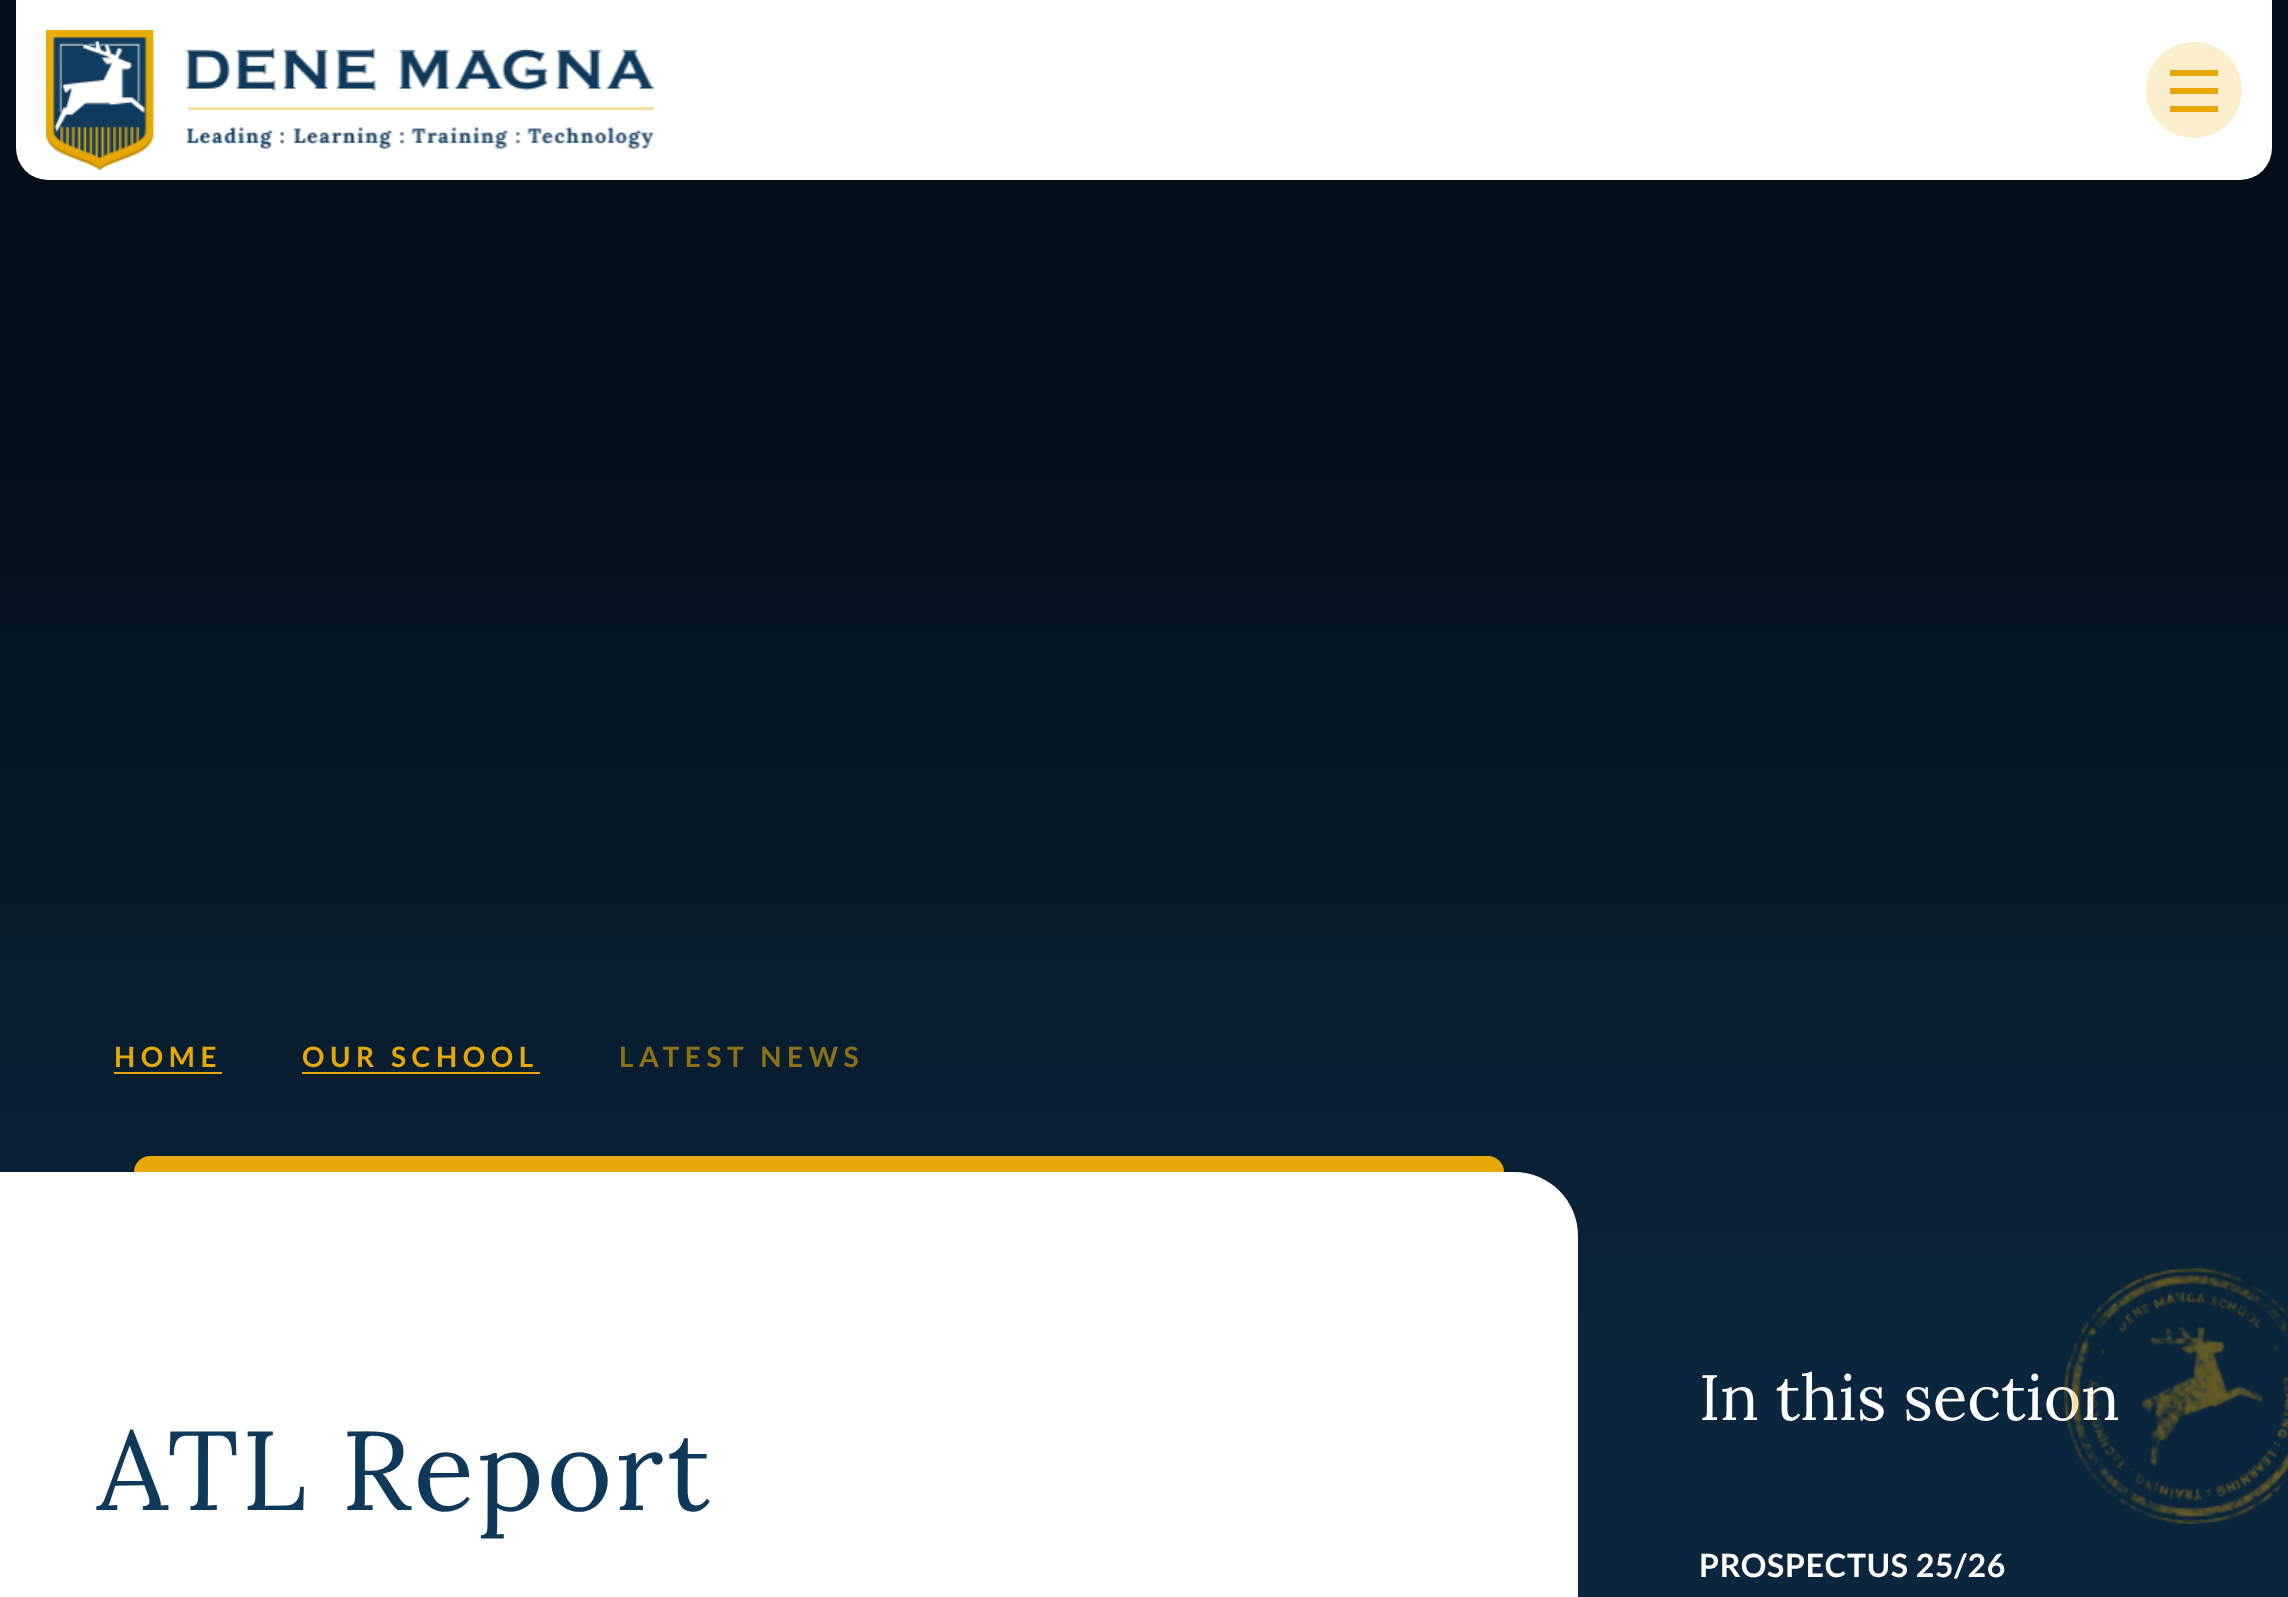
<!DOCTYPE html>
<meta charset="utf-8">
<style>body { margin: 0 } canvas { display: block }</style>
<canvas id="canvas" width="2288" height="1597"></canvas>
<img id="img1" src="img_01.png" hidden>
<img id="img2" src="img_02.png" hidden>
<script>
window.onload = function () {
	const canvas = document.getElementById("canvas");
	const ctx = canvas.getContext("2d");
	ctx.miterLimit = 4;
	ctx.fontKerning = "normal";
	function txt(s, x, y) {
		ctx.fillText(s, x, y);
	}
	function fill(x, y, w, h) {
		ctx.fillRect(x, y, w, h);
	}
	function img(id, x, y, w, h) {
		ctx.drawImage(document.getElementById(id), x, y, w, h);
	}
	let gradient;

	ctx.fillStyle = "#030F18";
	fill(0, 0, 2288, 1597);
	ctx.fillStyle = "#FFFFFF";
	ctx.beginPath();
	ctx.roundRect(16, 0, 2256, 180, [0, 0, 32, 32]);
	ctx.fill();
	img("img1", 46, 30, 608, 140);
	ctx.fillStyle = "#FAEECD";
	ctx.beginPath();
	ctx.arc(2194, 90, 48, 0, Math.PI * 2);
	ctx.fill();
	ctx.fillStyle = "#E7A807";
	fill(2170, 70, 48, 6);
	fill(2170, 88, 48, 6);
	fill(2170, 106, 48, 6);
	gradient = ctx.createLinearGradient(1144, 1372, 1144, 412);
	gradient.addColorStop(0, "#0B263C");
	gradient.addColorStop(1, "#030F18");
	ctx.fillStyle = gradient;
	fill(0, 479, 2288, 893);
	ctx.fillStyle = "#E7A807";
	fill(114, 1072, 108, 2);
	fill(302, 1072, 238, 2);
	ctx.beginPath();
	ctx.roundRect(134, 1156, 1370, 16, [16, 16, 0, 0]);
	ctx.fill();
	ctx.fillStyle = "#FFFFFF";
	ctx.beginPath();
	ctx.moveTo(0, 1172);
	ctx.lineTo(1514, 1172);
	ctx.bezierCurveTo(1549.5, 1172, 1578, 1200.5, 1578, 1236);
	ctx.lineTo(1578, 1597);
	ctx.bezierCurveTo(1578, 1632.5, 1549.5, 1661, 1514, 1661);
	ctx.lineTo(0, 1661);
	ctx.closePath();
	ctx.fill();
	ctx.fillStyle = "#0B263C";
	fill(1578, 1372, 710, 225);
	ctx.letterSpacing = "5.6px";
	ctx.font = "bold 28px Lato";
	ctx.fillStyle = "#E7A807";
	txt("HOME", 114, 1067);
	txt("OUR SCHOOL", 302, 1067);
	ctx.fillStyle = "#8E7117";
	txt("LATEST NEWS", 619, 1067);
	ctx.letterSpacing = "2.75px";
	ctx.font = "112px Lora";
	ctx.fillStyle = "#0F395A";
	txt("ATL Report", 97, 1510);
	ctx.letterSpacing = "0px";
	ctx.font = "64px Lora";
	ctx.fillStyle = "#FFFFFF";
	txt("In this section", 1699, 1420);
	img("img2", 2064, 1268, 224, 256);
	ctx.letterSpacing = "0.75px";
	ctx.font = "bold 32px Lato";
	txt("PROSPECTUS 25/26", 1699, 1577);
};
</script>
